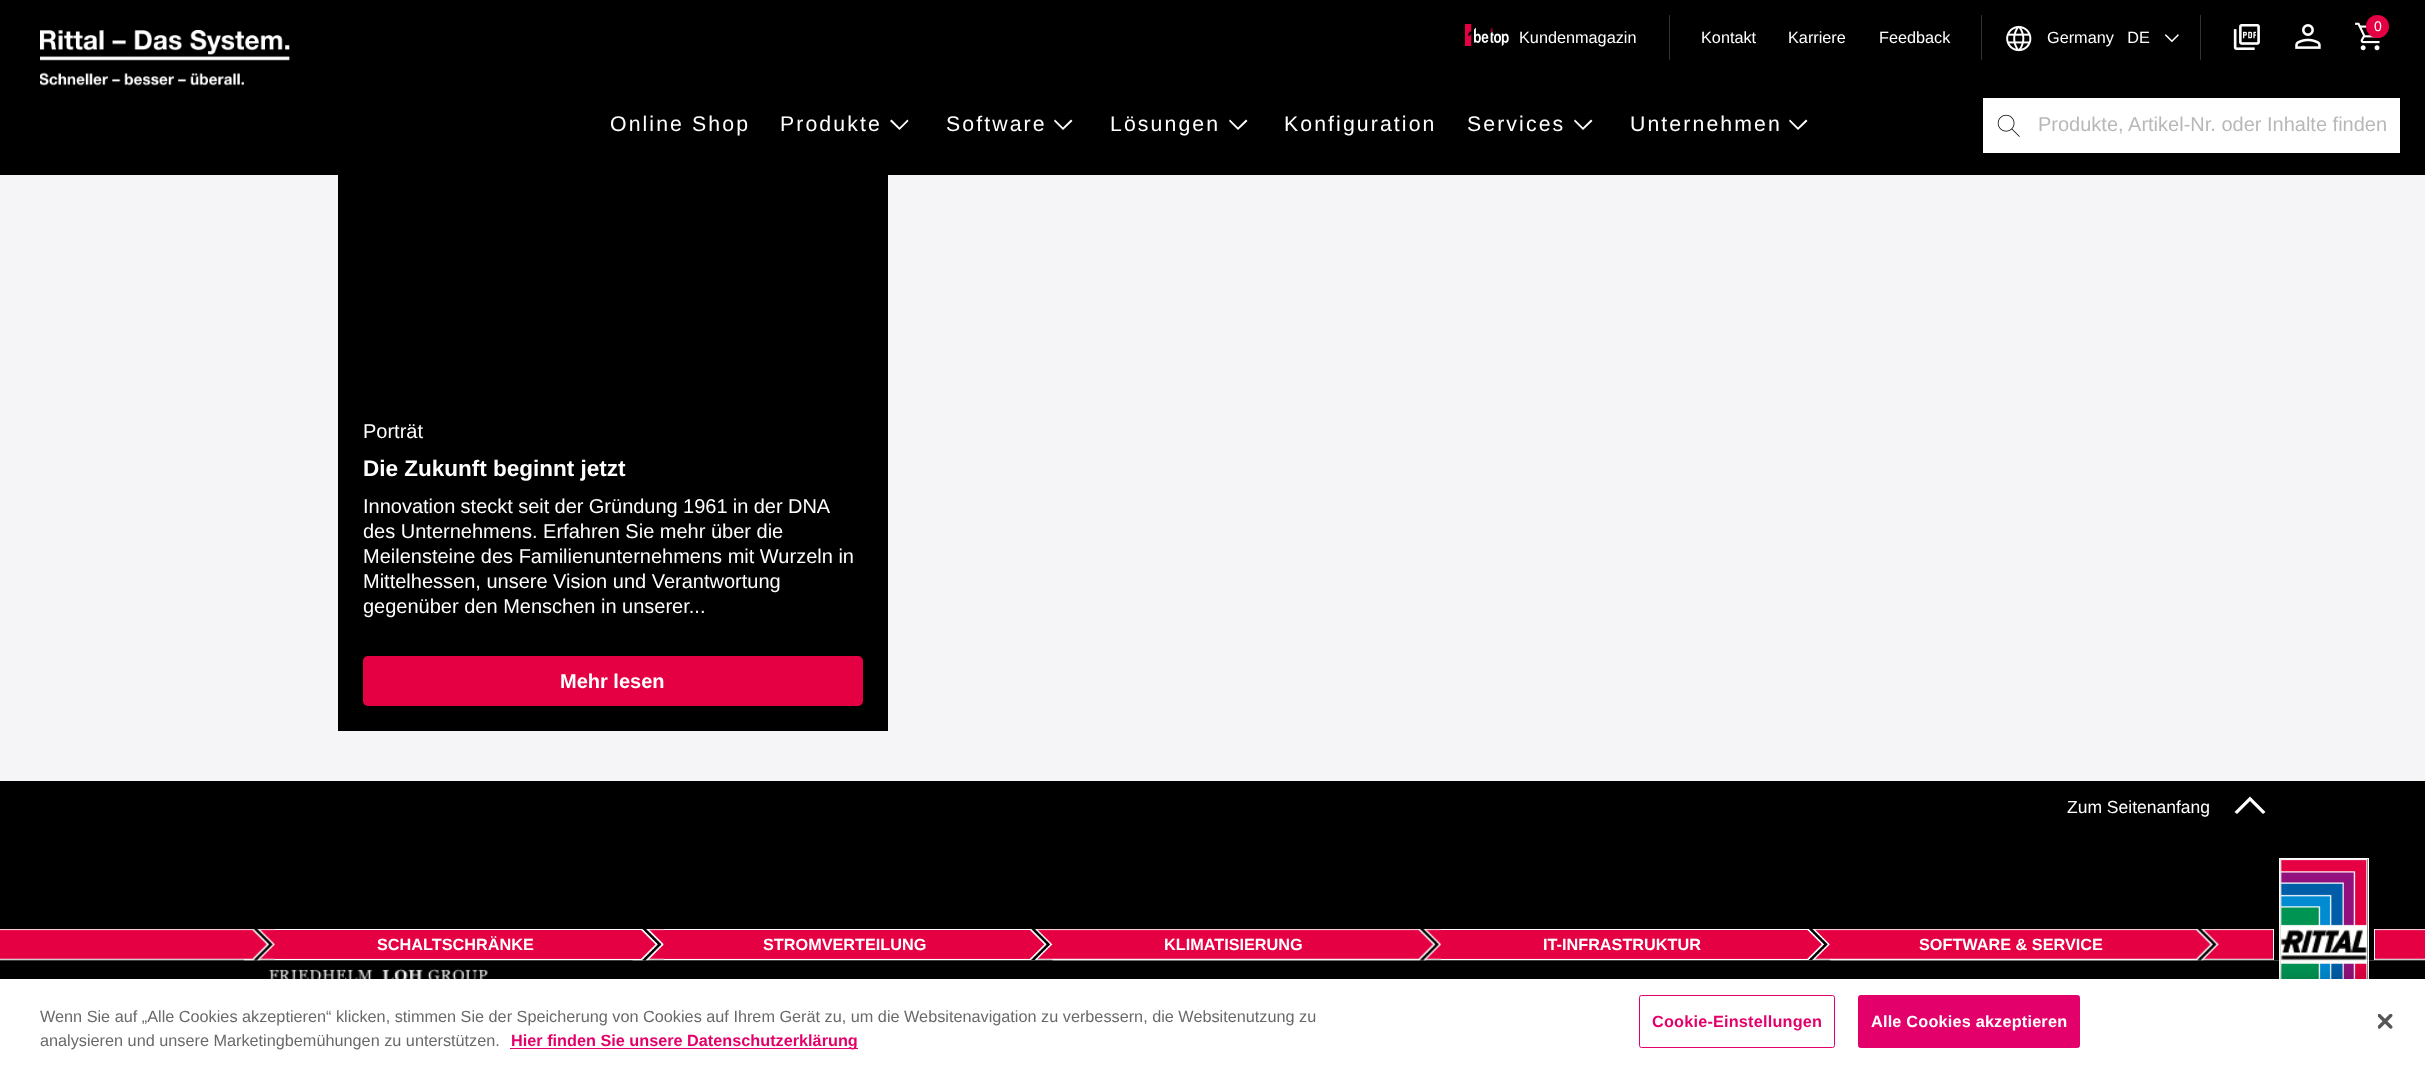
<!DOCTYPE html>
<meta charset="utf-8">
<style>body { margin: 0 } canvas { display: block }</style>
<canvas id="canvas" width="2425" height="1067"></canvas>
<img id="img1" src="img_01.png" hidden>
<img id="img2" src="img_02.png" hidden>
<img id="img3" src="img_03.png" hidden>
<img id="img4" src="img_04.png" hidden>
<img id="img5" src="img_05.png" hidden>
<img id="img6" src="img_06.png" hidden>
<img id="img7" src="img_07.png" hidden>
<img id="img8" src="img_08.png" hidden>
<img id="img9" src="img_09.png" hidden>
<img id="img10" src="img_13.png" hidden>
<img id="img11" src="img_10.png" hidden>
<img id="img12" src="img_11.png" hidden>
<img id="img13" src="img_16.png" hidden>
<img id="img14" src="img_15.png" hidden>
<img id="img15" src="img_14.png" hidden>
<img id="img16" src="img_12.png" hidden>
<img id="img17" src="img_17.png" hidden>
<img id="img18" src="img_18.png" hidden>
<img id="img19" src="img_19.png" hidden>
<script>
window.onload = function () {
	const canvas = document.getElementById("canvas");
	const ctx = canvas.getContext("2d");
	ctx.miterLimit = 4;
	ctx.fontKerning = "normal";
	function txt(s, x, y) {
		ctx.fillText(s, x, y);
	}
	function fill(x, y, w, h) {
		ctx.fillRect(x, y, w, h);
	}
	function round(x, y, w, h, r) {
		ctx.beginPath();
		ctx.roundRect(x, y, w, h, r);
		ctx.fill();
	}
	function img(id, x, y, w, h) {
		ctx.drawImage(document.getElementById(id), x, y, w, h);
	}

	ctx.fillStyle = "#000000";
	fill(0, 0, 2425, 1067);
	img("img1", 40, 30, 250, 56);
	img("img2", 1465, 24, 44, 22);
	ctx.fillStyle = "#333333";
	fill(1669, 15, 1, 45);
	fill(1981, 15, 1, 45);
	img("img3", 2006, 25, 26, 27);
	img("img4", 2164, 34, 15, 9);
	fill(2200, 15, 1, 45);
	img("img5", 2233, 24, 27, 26);
	img("img6", 2295, 24, 26, 25);
	img("img7", 2355, 22, 25, 29);
	ctx.fillStyle = "#E50043";
	ctx.beginPath();
	ctx.arc(2377.5, 26.5, 11.5, 0, Math.PI * 2);
	ctx.fill();
	ctx.fillStyle = "#FFFFFF";
	ctx.beginPath();
	ctx.moveTo(907.5, 119.5);
	ctx.lineTo(908.5, 121);
	ctx.lineTo(899.5, 130);
	ctx.lineTo(890, 121);
	ctx.lineTo(891.5, 119.5);
	ctx.lineTo(899.5, 127.5);
	ctx.closePath();
	ctx.fill();
	ctx.beginPath();
	ctx.moveTo(1071, 119.5);
	ctx.lineTo(1072.5, 121);
	ctx.lineTo(1063, 130);
	ctx.lineTo(1054, 121);
	ctx.lineTo(1055, 119.5);
	ctx.lineTo(1063, 127.5);
	ctx.closePath();
	ctx.fill();
	ctx.beginPath();
	ctx.moveTo(1246, 119.5);
	ctx.lineTo(1247.5, 121);
	ctx.lineTo(1238, 130);
	ctx.lineTo(1229, 121);
	ctx.lineTo(1230, 119.5);
	ctx.lineTo(1238, 127.5);
	ctx.closePath();
	ctx.fill();
	ctx.beginPath();
	ctx.moveTo(1591, 119.5);
	ctx.lineTo(1592.5, 121);
	ctx.lineTo(1583, 130);
	ctx.lineTo(1574, 121);
	ctx.lineTo(1575, 119.5);
	ctx.lineTo(1583, 127.5);
	ctx.closePath();
	ctx.fill();
	ctx.beginPath();
	ctx.moveTo(1806, 119.5);
	ctx.lineTo(1807.5, 121);
	ctx.lineTo(1798, 130);
	ctx.lineTo(1789, 121);
	ctx.lineTo(1790, 119.5);
	ctx.lineTo(1798, 127.5);
	ctx.closePath();
	ctx.fill();
	fill(1983, 98, 417, 55);
	img("img8", 1997, 114, 23, 23);
	img("img9", 0, 929, 2425, 32);
	img("img10", 632, 929, 32, 32);
	img("img11", 275, 929, 389, 31);
	img("img12", 244, 929, 32, 32);
	img("img13", 1829, 929, 390, 32);
	img("img14", 1441, 929, 389, 31);
	img("img15", 1052, 929, 390, 32);
	img("img16", 664, 929, 389, 31);
	ctx.fillStyle = "#000000";
	fill(2274, 929, 100, 31);
	ctx.strokeStyle = "#FFFFFF";
	ctx.strokeRect(2279.5, 858.5, 89, 124);
	img("img17", 2280, 859, 88, 120);
	ctx.fillStyle = "#FFFFFF";
	fill(2374, 929, 1, 31);
	fill(2273, 929, 1, 31);
	img("img18", 268, 968, 220, 11);
	ctx.fillStyle = "#F5F5F7";
	fill(0, 175, 2425, 606);
	ctx.fillStyle = "#000000";
	fill(338, 175, 550, 556);
	ctx.fillStyle = "#E50043";
	round(363, 656, 500, 50, 5);
	ctx.fillStyle = "#FFFFFF";
	ctx.beginPath();
	ctx.moveTo(2263, 814);
	ctx.lineTo(2265.5, 812);
	ctx.lineTo(2250, 796.5);
	ctx.lineTo(2234.5, 812);
	ctx.lineTo(2237, 814);
	ctx.lineTo(2250, 801);
	ctx.closePath();
	ctx.fill();
	ctx.fillStyle = "rgba(0, 0, 0, 0.2)";
	ctx.filter = "blur(11px)";
	ctx.beginPath();
	ctx.rect(0, 979, 2425, 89);
	ctx.fill();
	ctx.filter = "none";
	ctx.fillStyle = "#FFFFFF";
	fill(0, 979, 2425, 88);
	ctx.fillStyle = "#E3006A";
	fill(510, 1048, 348, 1);
	ctx.beginPath();
	ctx.roundRect(1639.5, 995.5, 195, 52, 2);
	ctx.strokeStyle = "#E3006A";
	ctx.stroke();
	ctx.beginPath();
	ctx.roundRect(1858.5, 995.5, 221, 52, 2);
	ctx.fill();
	ctx.stroke();
	img("img19", 2378, 1014, 15, 15);
	ctx.font = "16.25px Liberation Sans";
	ctx.fillStyle = "#FFFFFF";
	txt("Kundenmagazin", 1519, 43);
	txt("Kontakt", 1701, 43);
	txt("Karriere", 1788, 43);
	txt("Feedback", 1879, 43);
	txt("Germany   DE", 2047, 43);
	ctx.font = "14px Liberation Sans";
	txt("0", 2374, 31);
	ctx.letterSpacing = "2.1px";
	ctx.font = "21.25px Liberation Sans";
	txt("Online Shop", 610, 131);
	txt("Produkte", 780, 131);
	txt("Software", 946, 131);
	txt("Lösungen", 1110, 131);
	txt("Konfiguration", 1284, 131);
	txt("Services", 1467, 131);
	txt("Unternehmen", 1630, 131);
	ctx.letterSpacing = "0px";
	ctx.font = "20px Liberation Sans";
	ctx.fillStyle = "#B8B8B8";
	txt("Produkte, Artikel-Nr. oder Inhalte finden", 2038, 131);
	ctx.font = "bold 16.25px Liberation Sans";
	ctx.fillStyle = "#FFFFFF";
	txt("SCHALTSCHRÄNKE", 377, 950);
	txt("STROMVERTEILUNG", 763, 950);
	txt("KLIMATISIERUNG", 1164, 950);
	txt("IT-INFRASTRUKTUR", 1543, 950);
	txt("SOFTWARE & SERVICE", 1919, 950);
	ctx.font = "20px Liberation Sans";
	txt("Porträt", 363, 438);
	ctx.font = "bold 22.5px Liberation Sans";
	txt("Die Zukunft beginnt jetzt", 363, 476);
	ctx.wordSpacing = "-0.25px";
	ctx.font = "20px Liberation Sans";
	txt("Innovation steckt seit der Gründung 1961 in der DNA", 363, 513);
	ctx.wordSpacing = "0px";
	txt("des Unternehmens. Erfahren Sie mehr über die", 363, 538);
	txt("Meilensteine des Familienunternehmens mit Wurzeln in", 363, 563);
	txt("Mittelhessen, unsere Vision und Verantwortung", 363, 588);
	txt("gegenüber den Menschen in unserer...", 363, 613);
	ctx.font = "bold 20px Liberation Sans";
	txt("Mehr lesen", 560, 688);
	ctx.font = "17.5px Liberation Sans";
	txt("Zum Seitenanfang", 2067, 813);
	ctx.font = "16.25px Liberation Sans";
	ctx.fillStyle = "#696969";
	txt("Wenn Sie auf „Alle Cookies akzeptieren“ klicken, stimmen Sie der Speicherung von Cookies auf Ihrem Gerät zu, um die Websitenavigation zu verbessern, die Websitenutzung zu", 40, 1022);
	txt("analysieren und unsere Marketingbemühungen zu unterstützen.", 40, 1046);
	ctx.font = "bold 16.25px Liberation Sans";
	ctx.fillStyle = "#E3006A";
	txt("Hier finden Sie unsere Datenschutzerklärung", 511, 1046);
	ctx.letterSpacing = "0.2px";
	txt("Cookie-Einstellungen", 1652, 1027);
	ctx.fillStyle = "#FFFFFF";
	txt("Alle Cookies akzeptieren", 1871, 1027);
};
</script>
